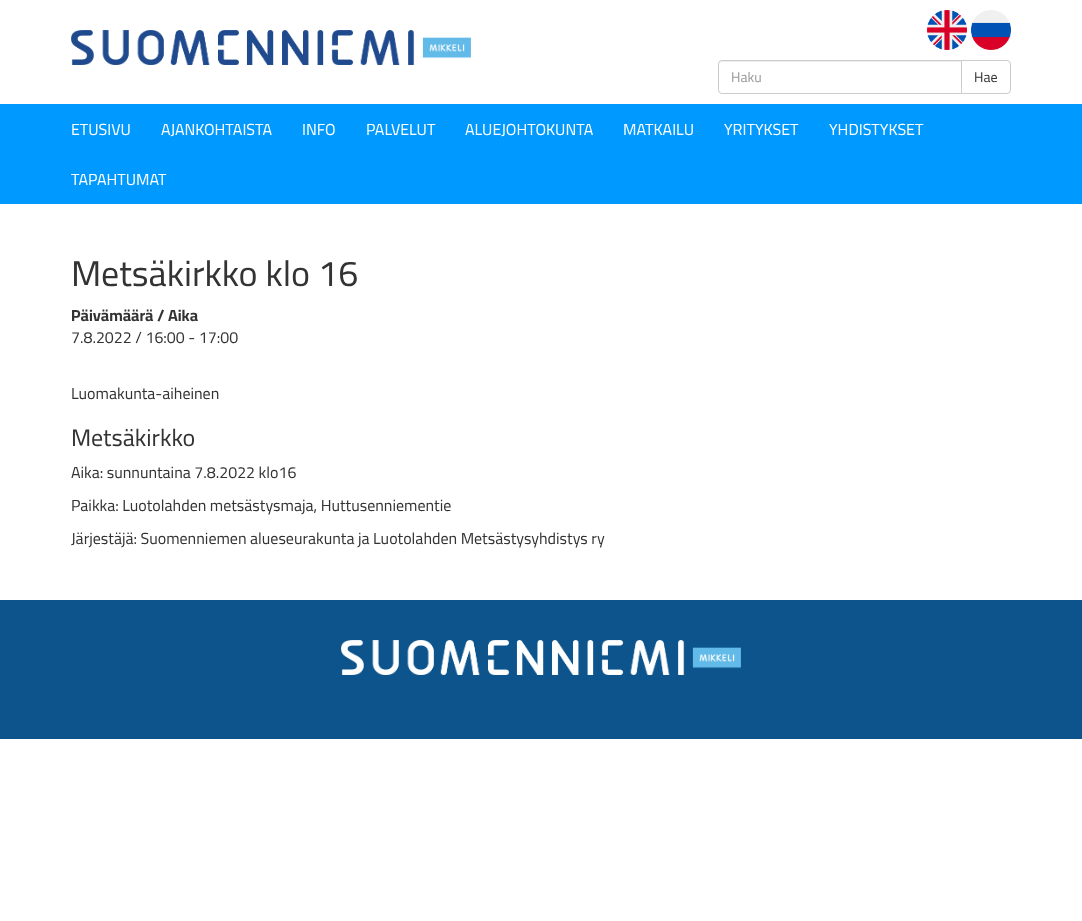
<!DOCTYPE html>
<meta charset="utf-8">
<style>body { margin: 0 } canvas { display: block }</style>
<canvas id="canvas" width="1082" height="921"></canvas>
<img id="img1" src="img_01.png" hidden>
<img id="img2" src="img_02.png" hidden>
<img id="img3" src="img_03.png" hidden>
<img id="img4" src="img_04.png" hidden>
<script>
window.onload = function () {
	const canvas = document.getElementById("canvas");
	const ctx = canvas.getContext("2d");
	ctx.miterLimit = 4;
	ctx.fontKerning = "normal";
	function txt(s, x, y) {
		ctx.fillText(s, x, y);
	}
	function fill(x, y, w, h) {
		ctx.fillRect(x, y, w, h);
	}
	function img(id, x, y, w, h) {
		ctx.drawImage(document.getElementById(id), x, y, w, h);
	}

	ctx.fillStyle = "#FFFFFF";
	fill(0, 0, 1082, 921);
	img("img1", 71, 30, 400, 35);
	img("img2", 927, 10, 40, 40);
	img("img3", 971, 10, 40, 40);
	ctx.fillStyle = "#ECECEC";
	ctx.beginPath();
	ctx.moveTo(722, 62);
	ctx.lineTo(961, 62);
	ctx.lineTo(961, 61);
	ctx.lineTo(722, 61);
	ctx.bezierCurveTo(720, 61, 719, 63, 719, 65);
	ctx.bezierCurveTo(719, 63, 720, 62, 722, 62);
	ctx.closePath();
	ctx.fill();
	ctx.beginPath();
	ctx.roundRect(718.5, 60.5, 243, 33, [3.5, 0, 0, 3.5]);
	ctx.strokeStyle = "#CCCCCC";
	ctx.stroke();
	ctx.fillStyle = "#FFFFFF";
	ctx.beginPath();
	ctx.roundRect(961.5, 60.5, 49, 33, [0, 3.5, 3.5, 0]);
	ctx.fill();
	ctx.stroke();
	ctx.fillStyle = "#0099FF";
	fill(0, 104, 1082, 100);
	ctx.fillStyle = "#0D548C";
	fill(0, 600, 1082, 139);
	img("img4", 341, 640, 400, 35);
	ctx.font = "14px Cairo";
	ctx.fillStyle = "#999999";
	txt("Haku", 731, 82);
	ctx.fillStyle = "#333333";
	txt("Hae", 974, 82);
	ctx.font = "16px Cairo";
	ctx.fillStyle = "#FFFFFF";
	txt("ETUSIVU", 71, 135);
	txt("AJANKOHTAISTA", 161, 135);
	txt("INFO", 302, 135);
	txt("PALVELUT", 366, 135);
	txt("ALUEJOHTOKUNTA", 465, 135);
	txt("MATKAILU", 623, 135);
	txt("YRITYKSET", 724, 135);
	txt("YHDISTYKSET", 829, 135);
	txt("TAPAHTUMAT", 71, 185);
	ctx.font = "36px Cairo";
	ctx.fillStyle = "#333333";
	txt("Metsäkirkko klo 16", 71, 286);
	ctx.font = "bold 16px Cairo";
	txt("Päivämäärä / Aika", 71, 321);
	ctx.font = "16px Cairo";
	txt("7.8.2022 / 16:00 - 17:00", 71, 343);
	txt("Luomakunta-aiheinen", 71, 399);
	ctx.font = "24px Cairo";
	txt("Metsäkirkko", 71, 446);
	ctx.font = "16px Cairo";
	txt("Aika: sunnuntaina 7.8.2022 klo16", 71, 478);
	txt("Paikka: Luotolahden metsästysmaja, Huttusenniementie", 71, 511);
	txt("Järjestäjä: Suomenniemen alueseurakunta ja Luotolahden Metsästysyhdistys ry", 71, 544);
};
</script>
